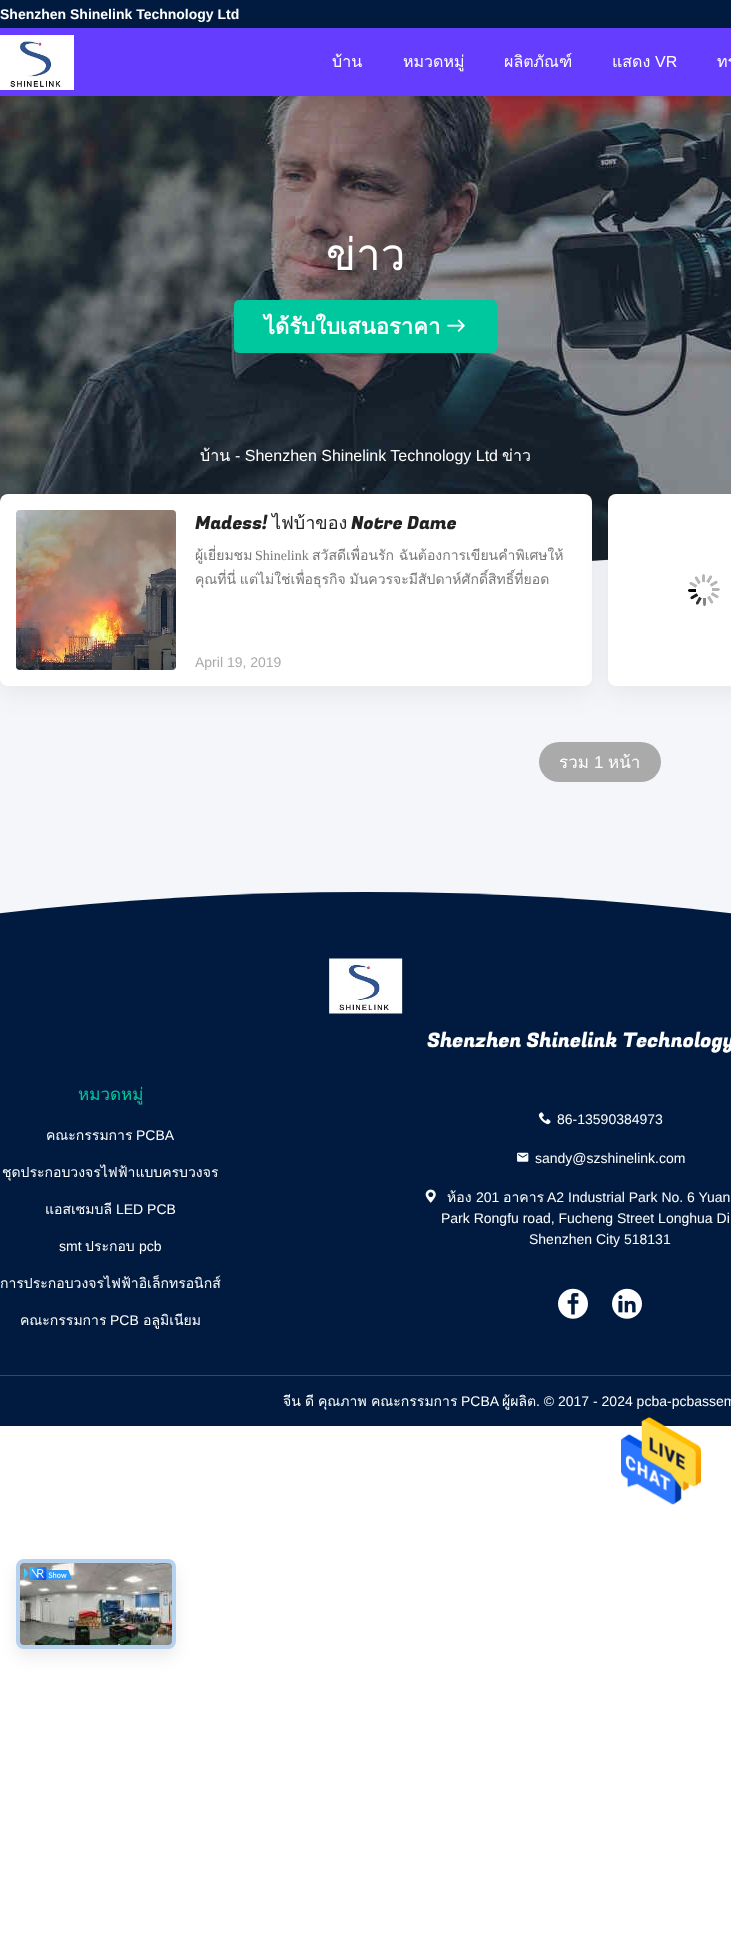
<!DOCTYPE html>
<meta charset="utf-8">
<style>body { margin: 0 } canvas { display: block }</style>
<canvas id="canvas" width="731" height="1939"></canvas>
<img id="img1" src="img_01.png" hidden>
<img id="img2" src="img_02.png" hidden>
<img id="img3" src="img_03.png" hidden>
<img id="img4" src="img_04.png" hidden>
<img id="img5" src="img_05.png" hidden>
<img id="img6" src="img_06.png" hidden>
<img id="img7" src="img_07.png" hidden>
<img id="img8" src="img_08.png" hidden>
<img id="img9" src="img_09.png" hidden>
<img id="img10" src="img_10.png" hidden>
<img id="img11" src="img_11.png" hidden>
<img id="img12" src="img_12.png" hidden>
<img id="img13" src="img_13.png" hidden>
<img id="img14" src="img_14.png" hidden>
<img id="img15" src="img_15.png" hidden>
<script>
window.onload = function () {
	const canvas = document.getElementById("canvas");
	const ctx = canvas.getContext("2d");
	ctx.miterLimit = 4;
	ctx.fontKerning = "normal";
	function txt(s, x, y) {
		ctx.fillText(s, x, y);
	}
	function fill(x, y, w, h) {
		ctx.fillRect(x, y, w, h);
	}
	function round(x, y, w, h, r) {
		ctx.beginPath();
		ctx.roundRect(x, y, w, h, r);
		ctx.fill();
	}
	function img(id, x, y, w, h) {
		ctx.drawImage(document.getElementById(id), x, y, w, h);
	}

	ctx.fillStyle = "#FFFFFF";
	fill(0, 0, 731, 1939);
	ctx.fillStyle = "#001B3F";
	fill(0, 0, 731, 28);
	ctx.fillStyle = "#653DFF";
	fill(0, 28, 731, 68);
	img("img1", 0, 35, 74, 55);
	img("img2", 0, 96, 731, 465);
	ctx.fillStyle = "#00C89E";
	round(234, 300, 263, 53, 5);
	img("img3", 447, 319, 18, 13);
	img("img4", 592, 559, 16, 9);
	ctx.fillStyle = "#F4F6F9";
	fill(0, 568, 731, 346);
	ctx.save();
	ctx.beginPath();
	ctx.rect(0, 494, 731, 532);
	ctx.clip();
	ctx.fillStyle = "rgba(68, 68, 68, 0.08)";
	ctx.filter = "blur(12px)";
	ctx.beginPath();
	ctx.roundRect(0, 502, 592, 192, 8);
	ctx.fill();
	ctx.filter = "none";
	ctx.restore();
	ctx.fillStyle = "#FFFFFF";
	round(0, 494, 592, 192, 8);
	img("img5", 16, 510, 160, 160);
	ctx.save();
	ctx.beginPath();
	ctx.rect(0, 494, 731, 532);
	ctx.clip();
	ctx.fillStyle = "rgba(68, 68, 68, 0.08)";
	ctx.filter = "blur(12px)";
	ctx.beginPath();
	ctx.roundRect(608, 502, 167, 192, 8);
	ctx.fill();
	ctx.filter = "none";
	ctx.restore();
	ctx.beginPath();
	ctx.roundRect(608, 494, 123, 192, [8, 0, 0, 8]);
	ctx.fill();
	img("img6", 688, 574, 32, 32);
	ctx.fillStyle = "#AAAAAA";
	round(539, 742, 122, 40, 20);
	ctx.save();
	ctx.beginPath();
	ctx.rect(0, 892, 731, 534);
	ctx.clip();
	ctx.fillStyle = "#001B3F";
	ctx.beginPath();
	ctx.moveTo(366, 892);
	ctx.bezierCurveTo(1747, 892, 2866, 1787, 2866, 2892);
	ctx.lineTo(-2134, 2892);
	ctx.bezierCurveTo(-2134, 1787, -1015, 892, 366, 892);
	ctx.closePath();
	ctx.fill();
	ctx.restore();
	img("img7", 329, 958, 74, 56);
	img("img8", 538, 1112, 13, 13);
	img("img9", 517, 1152, 12, 10);
	img("img10", 425, 1189, 11, 14);
	img("img11", 558, 1288, 30, 31);
	img("img12", 612, 1288, 30, 31);
	ctx.fillStyle = "#334965";
	fill(0, 1375, 731, 1);
	img("img13", 621, 1417, 80, 88);
	ctx.fillStyle = "rgba(0, 0, 0, 0.08)";
	ctx.filter = "blur(8px)";
	ctx.beginPath();
	ctx.roundRect(16, 1567, 160, 90, 8);
	ctx.fill();
	ctx.filter = "none";
	ctx.fillStyle = "#EEEEEE";
	round(16, 1559, 160, 90, 8);
	ctx.beginPath();
	ctx.roundRect(18, 1561, 156, 86, 6);
	ctx.strokeStyle = "rgba(4, 120, 237, 0.24)";
	ctx.lineWidth = 4;
	ctx.stroke();
	img("img14", 20, 1563, 152, 82);
	img("img15", 24, 1567, 48, 13);
	ctx.font = "bold 14px Liberation Sans";
	ctx.fillStyle = "#FFFFFF";
	txt("Shenzhen Shinelink Technology Ltd", 0, 19);
	ctx.font = "16px Loma";
	txt("บ้าน", 332, 67);
	txt("หมวดหมู่", 403, 67);
	txt("ผลิตภัณฑ์", 504, 67);
	txt("แสดง", 612, 67);
	ctx.font = "16px Liberation Sans";
	txt("VR", 655, 67);
	ctx.font = "16px Loma";
	txt("ทร", 717, 67);
	ctx.font = "44px Loma";
	txt("ข่าว", 326, 270);
	ctx.font = "bold 22px Loma";
	txt("ได้รับใบเสนอราคา", 264, 334);
	ctx.font = "16px Loma";
	txt("บ้าน", 200, 461);
	ctx.font = "16px Liberation Sans";
	txt("- Shenzhen Shinelink Technology Ltd", 235, 461);
	ctx.font = "16px Loma";
	txt("ข่าว", 502, 461);
	ctx.font = "18px Fugaz One";
	ctx.fillStyle = "#222222";
	txt("Madess!", 195, 529);
	ctx.font = "18px Loma";
	txt("ไฟบ้าของ", 272, 529);
	ctx.font = "18px Fugaz One";
	txt("Notre Dame", 351, 529);
	ctx.save();
	ctx.beginPath();
	ctx.rect(195, 544, 384, 48);
	ctx.clip();
	ctx.font = "14px Loma";
	ctx.fillStyle = "#777777";
	txt("ผู้เยี่ยมชม", 195, 560);
	ctx.restore();
	ctx.font = "14px Liberation Serif";
	ctx.fillStyle = "#777777";
	txt("Shinelink", 255, 560);
	ctx.font = "14px Loma";
	txt("สวัสดีเพื่อนรัก ฉันต้องการเขียนคำพิเศษให้", 312, 560);
	ctx.save();
	ctx.beginPath();
	ctx.rect(195, 544, 384, 48);
	ctx.clip();
	ctx.wordSpacing = "-1px";
	txt("คุณที่นี่ แต่ไม่ใช่เพื่อธุรกิจ มันควรจะมีสัปดาห์ศักดิ์สิทธิ์ที่ยอด", 195, 584);
	ctx.restore();
	ctx.font = "14px Liberation Sans";
	ctx.fillStyle = "#AAAAAA";
	txt("April 19, 2019", 195, 667);
	ctx.font = "17px Loma";
	ctx.fillStyle = "#FFFFFF";
	txt("รวม", 559, 768);
	ctx.font = "17px Liberation Sans";
	txt("1", 594, 768);
	ctx.font = "17px Loma";
	txt("หน้า", 608, 768);
	ctx.font = "20px Fugaz One";
	txt("Shenzhen Shinelink Technology", 427, 1047);
	ctx.font = "17px Loma";
	ctx.fillStyle = "#00C89E";
	txt("หมวดหมู่", 78, 1100);
	ctx.font = "14px Loma";
	ctx.fillStyle = "#FFFFFF";
	txt("คณะกรรมการ", 46, 1140);
	ctx.font = "14px Liberation Sans";
	txt("PCBA", 136, 1140);
	ctx.font = "14px Loma";
	txt("ชุดประกอบวงจรไฟฟ้าแบบครบวงจร", 2, 1177);
	txt("แอสเซมบลี", 45, 1214);
	ctx.font = "14px Liberation Sans";
	txt("LED PCB", 116, 1214);
	txt("smt", 59, 1251);
	ctx.font = "14px Loma";
	txt("ประกอบ", 85, 1251);
	ctx.font = "14px Liberation Sans";
	txt("pcb", 139, 1251);
	ctx.font = "14px Loma";
	txt("การประกอบวงจรไฟฟ้าอิเล็กทรอนิกส์", 0, 1288);
	txt("คณะกรรมการ", 20, 1325);
	ctx.font = "14px Liberation Sans";
	txt("PCB", 110, 1325);
	ctx.font = "14px Loma";
	txt("อลูมิเนียม", 143, 1325);
	ctx.font = "14px Liberation Sans";
	txt("86-13590384973", 557, 1124);
	txt("sandy@szshinelink.com", 535, 1163);
	ctx.font = "14px Loma";
	txt("ห้อง", 447, 1202);
	ctx.font = "14px Liberation Sans";
	txt("201", 476, 1202);
	ctx.font = "14px Loma";
	txt("อาคาร", 503, 1202);
	ctx.font = "14px Liberation Sans";
	txt("A2 Industrial Park No. 6 Yuan", 547, 1202);
	txt("Park Rongfu road, Fucheng Street Longhua Di", 441, 1223);
	txt("Shenzhen City 518131", 529, 1244);
	ctx.font = "14px Loma";
	txt("จีน", 283, 1406);
	txt("ดี", 305, 1406);
	txt("คุณภาพ", 318, 1406);
	txt("คณะกรรมการ", 371, 1406);
	ctx.font = "14px Liberation Sans";
	txt("PCBA", 461, 1406);
	ctx.font = "14px Loma";
	txt("ผู้ผลิต", 502, 1406);
	ctx.font = "14px Liberation Sans";
	txt(". © 2017 - 2024 pcba-pcbassem", 536, 1406);
};
</script>
